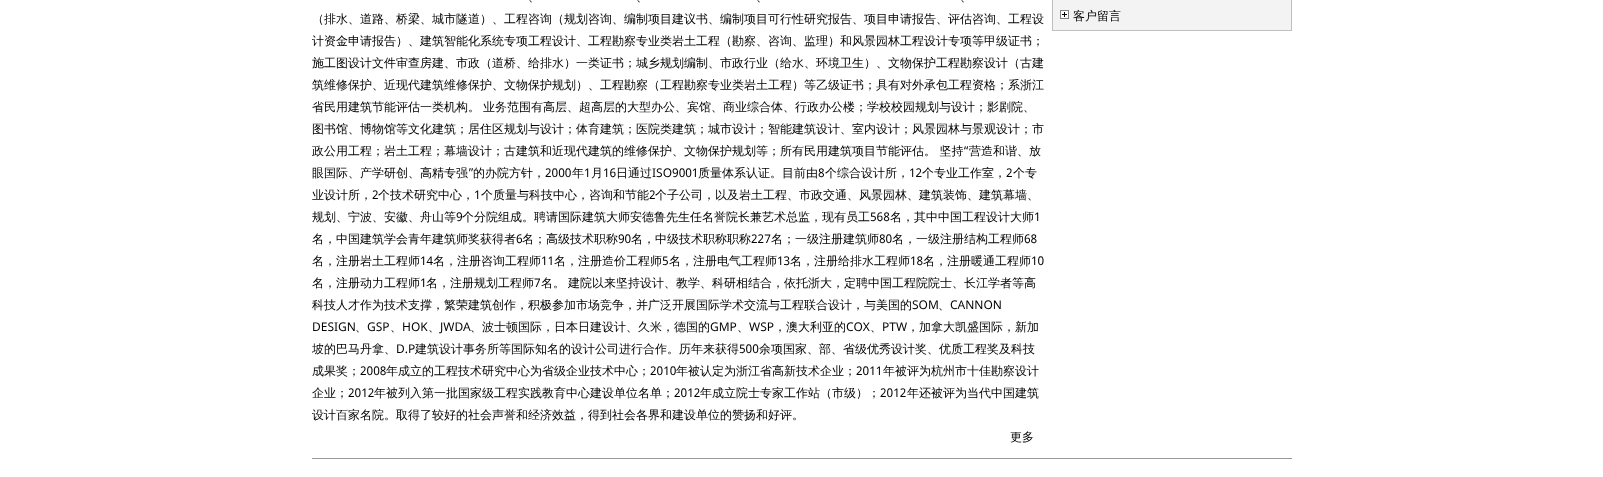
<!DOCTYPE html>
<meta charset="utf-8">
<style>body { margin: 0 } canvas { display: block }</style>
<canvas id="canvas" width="1603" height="477"></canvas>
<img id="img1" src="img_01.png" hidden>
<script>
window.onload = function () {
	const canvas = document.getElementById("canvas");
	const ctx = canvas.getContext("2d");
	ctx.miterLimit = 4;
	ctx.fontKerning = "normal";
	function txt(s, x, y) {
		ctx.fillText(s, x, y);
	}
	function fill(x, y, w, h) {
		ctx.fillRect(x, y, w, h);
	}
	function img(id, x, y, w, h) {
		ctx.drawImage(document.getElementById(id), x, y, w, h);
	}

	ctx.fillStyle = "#FFFFFF";
	fill(0, 0, 1603, 477);
	ctx.fillStyle = "#F3F3F3";
	fill(1053, 0, 238, 30);
	ctx.fillStyle = "#BFBEBE";
	fill(1291, 0, 1, 31);
	fill(1052, 30, 240, 1);
	fill(1052, 0, 1, 31);
	img("img1", 1060, 10, 9, 9);
	ctx.fillStyle = "#999999";
	fill(312, 458, 980, 1);
	ctx.font = "500 12px WenQuanYi Zen Hei";
	ctx.fillStyle = "#000000";
	txt("、", 528, 1);
	txt("、", 636, 1);
	txt("、", 756, 1);
	txt("、", 960, 1);
	txt("（排水、道路、桥梁、城市隧道）、工程咨询（规划咨询、编制项目建议书、编制项目可行性研究报告、项目申请报告、评估咨询、工程设", 312, 23);
	txt("计资金申请报告）、建筑智能化系统专项工程设计、工程勘察专业类岩土工程（勘察、咨询、监理）和风景园林工程设计专项等甲级证书；", 312, 45);
	txt("施工图设计文件审查房建、市政（道桥、给排水）一类证书；城乡规划编制、市政行业（给水、环境卫生）、文物保护工程勘察设计（古建", 312, 67);
	txt("筑维修保护、近现代建筑维修保护、文物保护规划）、工程勘察（工程勘察专业类岩土工程）等乙级证书；具有对外承包工程资格；系浙江", 312, 89);
	txt("省民用建筑节能评估一类机构。", 312, 111);
	txt("业务范围有高层、超高层的大型办公、宾馆、商业综合体、行政办公楼；学校校园规划与设计；影剧院、", 483, 111);
	txt("图书馆、博物馆等文化建筑；居住区规划与设计；体育建筑；医院类建筑；城市设计；智能建筑设计、室内设计；风景园林与景观设计；市", 312, 133);
	txt("政公用工程；岩土工程；幕墙设计；古建筑和近现代建筑的维修保护、文物保护规划等；所有民用建筑项目节能评估。 坚持", 312, 155);
	ctx.font = "12px Noto Sans";
	txt("“", 963, 155);
	ctx.font = "500 12px WenQuanYi Zen Hei";
	txt("营造和谐、放", 969, 155);
	txt("眼国际、产学研创、高精专强", 312, 177);
	ctx.font = "12px Noto Sans";
	txt("”", 468, 177);
	ctx.font = "500 12px WenQuanYi Zen Hei";
	txt("的办院方针，", 473, 177);
	ctx.font = "12px Noto Sans";
	txt("2000", 545, 177);
	ctx.font = "500 12px WenQuanYi Zen Hei";
	txt("年", 572, 177);
	ctx.font = "12px Noto Sans";
	txt("1", 584, 177);
	ctx.font = "500 12px WenQuanYi Zen Hei";
	txt("月", 591, 177);
	ctx.font = "12px Noto Sans";
	txt("16", 603, 177);
	ctx.font = "500 12px WenQuanYi Zen Hei";
	txt("日通过", 616, 177);
	ctx.font = "12px Noto Sans";
	txt("ISO9001", 652, 177);
	ctx.font = "500 12px WenQuanYi Zen Hei";
	txt("质量体系认证。目前由", 698, 177);
	ctx.font = "12px Noto Sans";
	txt("8", 818, 177);
	ctx.font = "500 12px WenQuanYi Zen Hei";
	txt("个综合设计所，", 825, 177);
	ctx.font = "12px Noto Sans";
	txt("12", 909, 177);
	ctx.font = "500 12px WenQuanYi Zen Hei";
	txt("个专业工作室，", 922, 177);
	ctx.font = "12px Noto Sans";
	txt("2", 1006, 177);
	ctx.font = "500 12px WenQuanYi Zen Hei";
	txt("个专", 1013, 177);
	txt("业设计所，", 312, 199);
	ctx.font = "12px Noto Sans";
	txt("2", 372, 199);
	ctx.font = "500 12px WenQuanYi Zen Hei";
	txt("个技术研究中心，", 378, 199);
	ctx.font = "12px Noto Sans";
	txt("1", 474, 199);
	ctx.font = "500 12px WenQuanYi Zen Hei";
	txt("个质量与科技中心，咨询和节能", 481, 199);
	ctx.font = "12px Noto Sans";
	txt("2", 649, 199);
	ctx.font = "500 12px WenQuanYi Zen Hei";
	txt("个子公司，以及岩土工程、市政交通、风景园林、建筑装饰、建筑幕墙、", 655, 199);
	txt("规划、宁波、安徽、舟山等", 312, 221);
	ctx.font = "12px Noto Sans";
	txt("9", 456, 221);
	ctx.font = "500 12px WenQuanYi Zen Hei";
	txt("个分院组成。聘请国际建筑大师安德鲁先生任名誉院长兼艺术总监，现有员工", 462, 221);
	ctx.font = "12px Noto Sans";
	txt("568", 870, 221);
	ctx.font = "500 12px WenQuanYi Zen Hei";
	txt("名，其中中国工程设计大师", 890, 221);
	ctx.font = "12px Noto Sans";
	txt("1", 1034, 221);
	ctx.font = "500 12px WenQuanYi Zen Hei";
	txt("名，中国建筑学会青年建筑师奖获得者", 312, 243);
	ctx.font = "12px Noto Sans";
	txt("6", 516, 243);
	ctx.font = "500 12px WenQuanYi Zen Hei";
	txt("名；高级技术职称", 522, 243);
	ctx.font = "12px Noto Sans";
	txt("90", 618, 243);
	ctx.font = "500 12px WenQuanYi Zen Hei";
	txt("名，中级技术职称职称", 631, 243);
	ctx.font = "12px Noto Sans";
	txt("227", 751, 243);
	ctx.font = "500 12px WenQuanYi Zen Hei";
	txt("名；一级注册建筑师", 771, 243);
	ctx.font = "12px Noto Sans";
	txt("80", 879, 243);
	ctx.font = "500 12px WenQuanYi Zen Hei";
	txt("名，一级注册结构工程师", 892, 243);
	ctx.font = "12px Noto Sans";
	txt("68", 1024, 243);
	ctx.font = "500 12px WenQuanYi Zen Hei";
	txt("名，注册岩土工程师", 312, 265);
	ctx.font = "12px Noto Sans";
	txt("14", 420, 265);
	ctx.font = "500 12px WenQuanYi Zen Hei";
	txt("名，注册咨询工程师", 433, 265);
	ctx.font = "12px Noto Sans";
	txt("11", 541, 265);
	ctx.font = "500 12px WenQuanYi Zen Hei";
	txt("名，注册造价工程师", 554, 265);
	ctx.font = "12px Noto Sans";
	txt("5", 662, 265);
	ctx.font = "500 12px WenQuanYi Zen Hei";
	txt("名，注册电气工程师", 669, 265);
	ctx.font = "12px Noto Sans";
	txt("13", 777, 265);
	ctx.font = "500 12px WenQuanYi Zen Hei";
	txt("名，注册给排水工程师", 790, 265);
	ctx.font = "12px Noto Sans";
	txt("18", 910, 265);
	ctx.font = "500 12px WenQuanYi Zen Hei";
	txt("名，注册暖通工程师", 923, 265);
	ctx.font = "12px Noto Sans";
	txt("10", 1031, 265);
	ctx.font = "500 12px WenQuanYi Zen Hei";
	txt("名，注册动力工程师", 312, 287);
	ctx.font = "12px Noto Sans";
	txt("1", 420, 287);
	ctx.font = "500 12px WenQuanYi Zen Hei";
	txt("名，注册规划工程师", 426, 287);
	ctx.font = "12px Noto Sans";
	txt("7", 534, 287);
	ctx.font = "500 12px WenQuanYi Zen Hei";
	txt("名。", 541, 287);
	txt("建院以来坚持设计、教学、科研相结合，依托浙大，定聘中国工程院院士、长江学者等高", 568, 287);
	txt("科技人才作为技术支撑，繁荣建筑创作，积极参加市场竞争，并广泛开展国际学术交流与工程联合设计，与美国的", 312, 309);
	ctx.font = "12px Noto Sans";
	txt("SOM", 912, 309);
	ctx.font = "500 12px WenQuanYi Zen Hei";
	txt("、", 938, 309);
	ctx.font = "12px Noto Sans";
	txt("CANNON", 950, 309);
	txt("DESIGN", 312, 331);
	txt("GSP", 367, 331);
	txt("HOK", 402, 331);
	txt("JWDA", 440, 331);
	ctx.font = "500 12px WenQuanYi Zen Hei";
	txt("、波士顿国际，日本日建设计、久米，德国的", 470, 331);
	ctx.font = "12px Noto Sans";
	txt("GMP", 710, 331);
	txt("WSP", 749, 331);
	ctx.font = "500 12px WenQuanYi Zen Hei";
	txt("，澳大利亚的", 774, 331);
	ctx.font = "12px Noto Sans";
	txt("COX", 846, 331);
	txt("PTW", 882, 331);
	ctx.font = "500 12px WenQuanYi Zen Hei";
	txt("，加拿大凯盛国际，新加", 907, 331);
	txt("、", 355, 331);
	txt("、", 390, 331);
	txt("、", 428, 331);
	txt("、", 737, 331);
	txt("、", 870, 331);
	txt("坡的巴马丹拿、", 312, 353);
	ctx.font = "12px Noto Sans";
	txt("D.P", 396, 353);
	ctx.font = "500 12px WenQuanYi Zen Hei";
	txt("建筑设计事务所等国际知名的设计公司进行合作。历年来获得", 415, 353);
	ctx.font = "12px Noto Sans";
	txt("500", 739, 353);
	ctx.font = "500 12px WenQuanYi Zen Hei";
	txt("余项国家、部、省级优秀设计奖、优质工程奖及科技", 759, 353);
	txt("成果奖；", 312, 375);
	ctx.font = "12px Noto Sans";
	txt("2008", 360, 375);
	ctx.font = "500 12px WenQuanYi Zen Hei";
	txt("年成立的工程技术研究中心为省级企业技术中心；", 386, 375);
	ctx.font = "12px Noto Sans";
	txt("2010", 650, 375);
	ctx.font = "500 12px WenQuanYi Zen Hei";
	txt("年被认定为浙江省高新技术企业；", 676, 375);
	ctx.font = "12px Noto Sans";
	txt("2011", 856, 375);
	ctx.font = "500 12px WenQuanYi Zen Hei";
	txt("年被评为杭州市十佳勘察设计", 883, 375);
	txt("企业；", 312, 397);
	ctx.font = "12px Noto Sans";
	txt("2012", 348, 397);
	ctx.font = "500 12px WenQuanYi Zen Hei";
	txt("年被列入第一批国家级工程实践教育中心建设单位名单；", 374, 397);
	ctx.font = "12px Noto Sans";
	txt("2012", 674, 397);
	ctx.font = "500 12px WenQuanYi Zen Hei";
	txt("年成立院士专家工作站（市级）；", 700, 397);
	ctx.font = "12px Noto Sans";
	txt("2012", 880, 397);
	ctx.font = "500 12px WenQuanYi Zen Hei";
	txt("年还被评为当代中国建筑", 907, 397);
	txt("设计百家名院。取得了较好的社会声誉和经济效益，得到社会各界和建设单位的赞扬和好评。", 312, 419);
	txt("更多", 1010, 441);
	txt("客户留言", 1073, 20);
};
</script>
